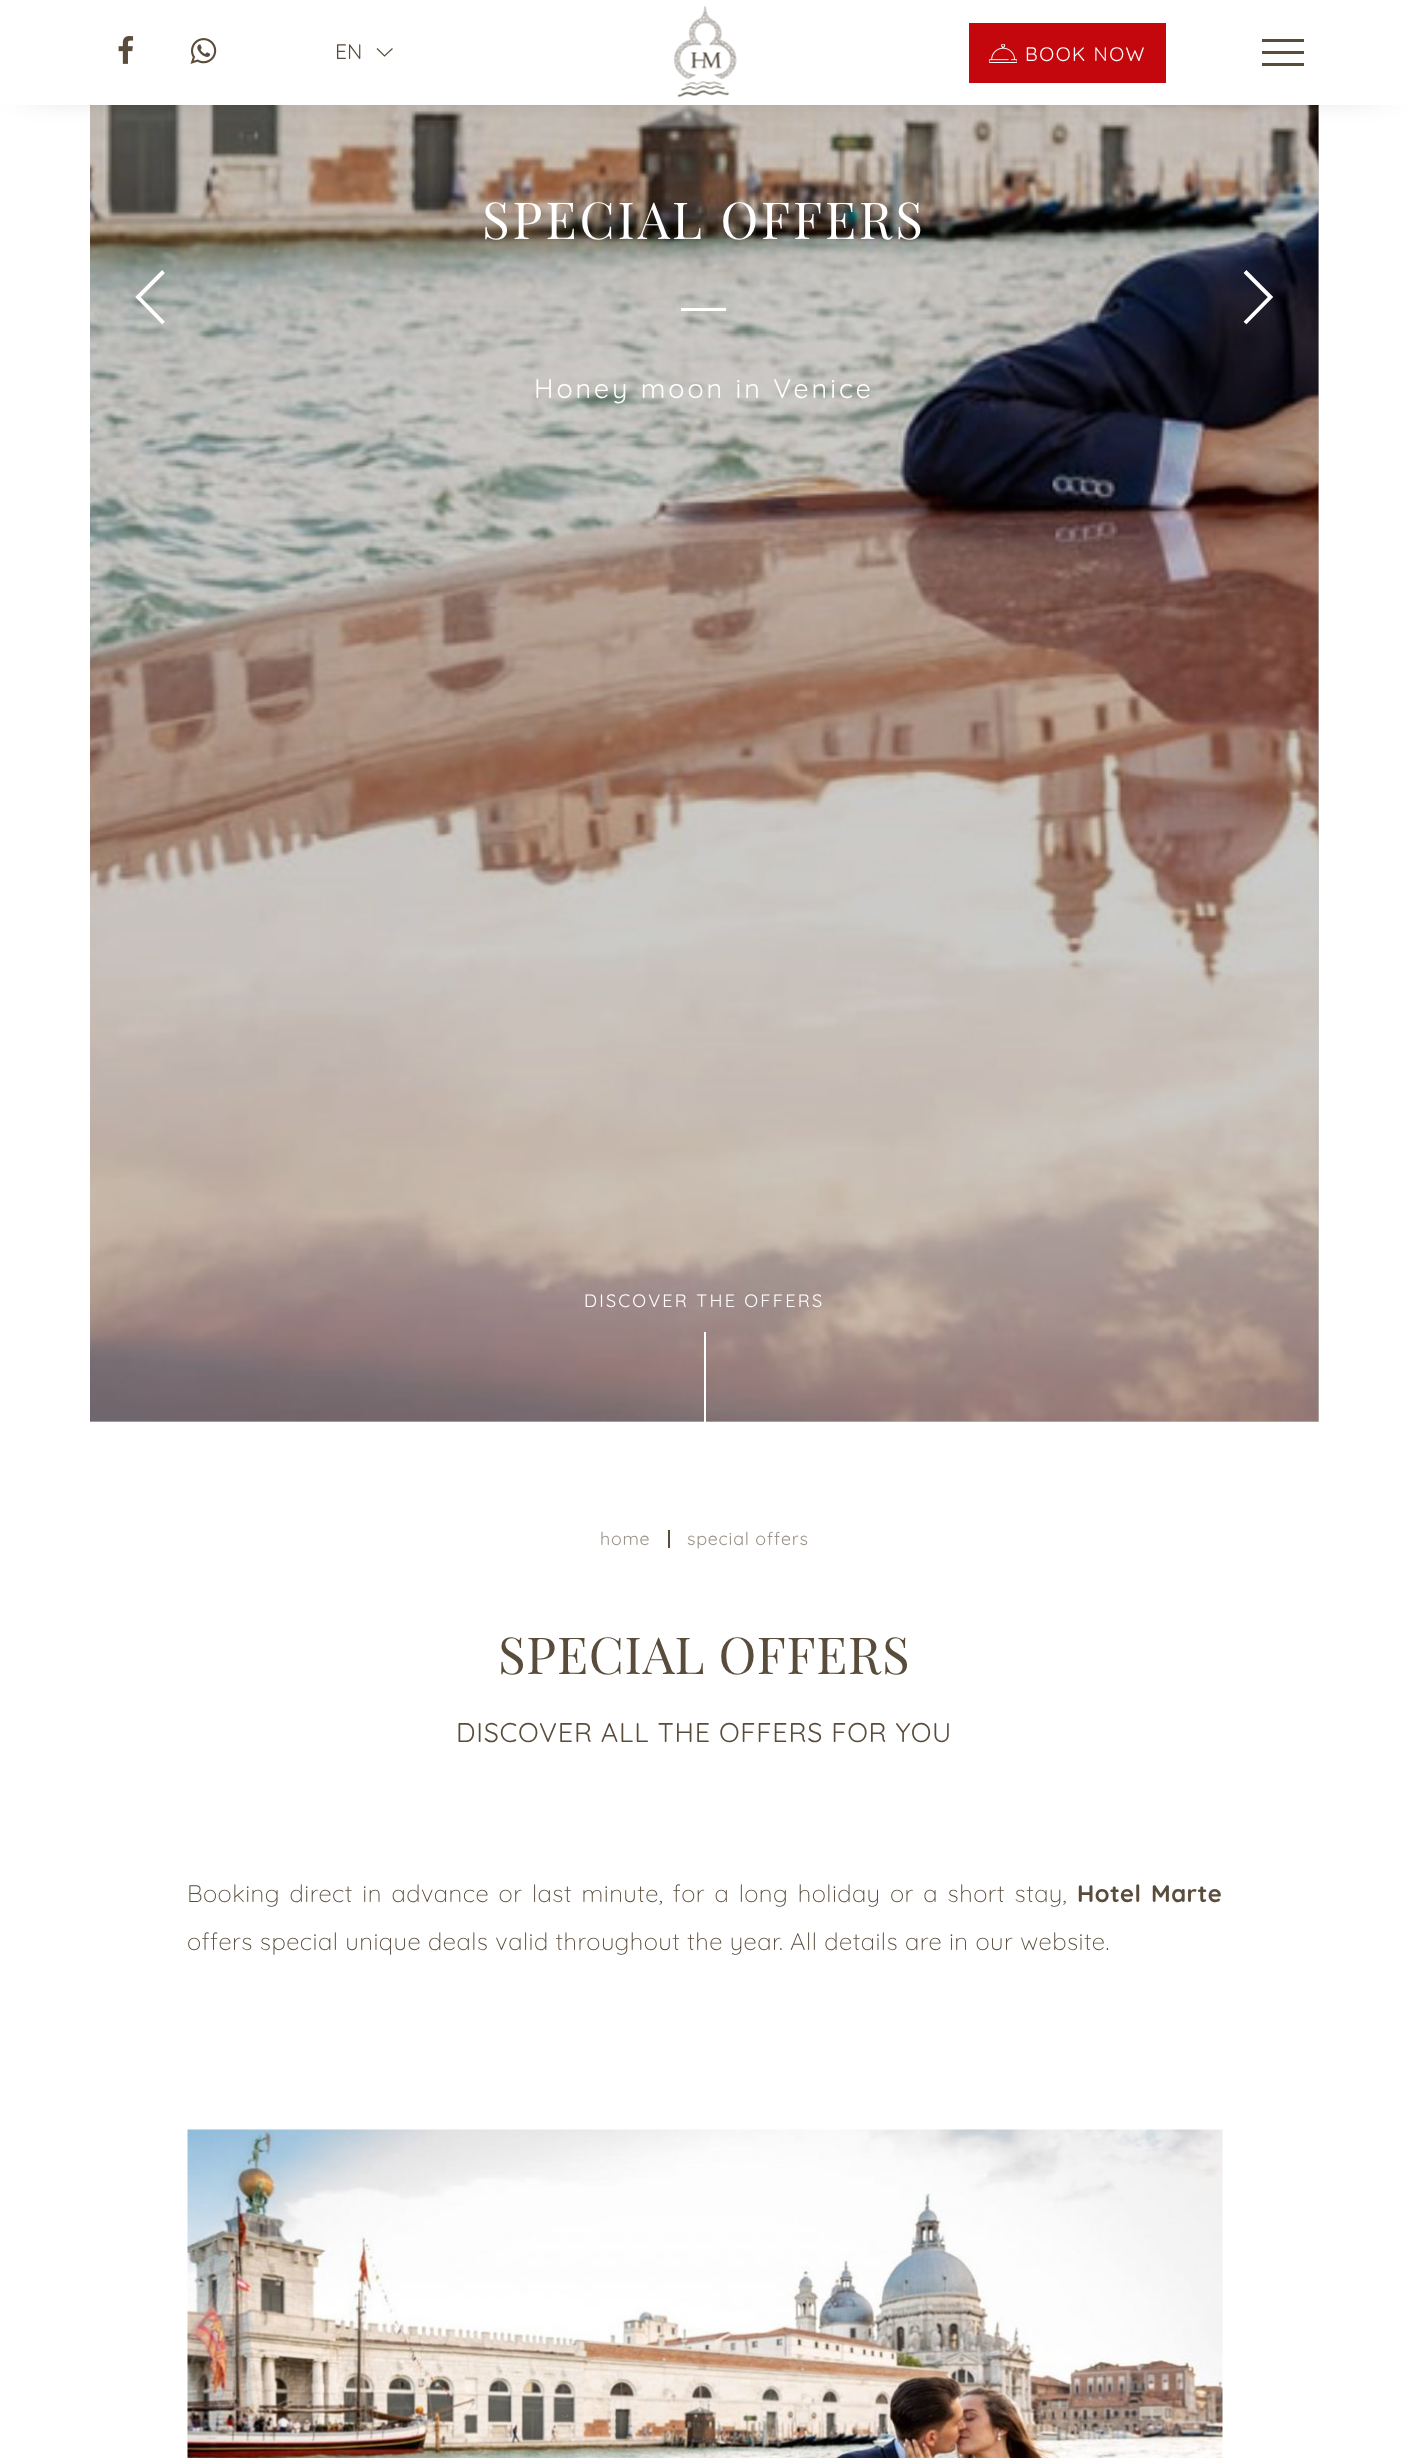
<!DOCTYPE html>
<meta charset="utf-8">
<style>body { margin: 0 } canvas { display: block }</style>
<canvas id="canvas" width="1408" height="2458"></canvas>
<img id="img1" src="img_05.png" hidden>
<img id="img2" src="img_01.png" hidden>
<img id="img3" src="img_02.png" hidden>
<img id="img4" src="img_03.png" hidden>
<img id="img5" src="img_04.png" hidden>
<img id="img6" src="img_06.png" hidden>
<script>
window.onload = function () {
	const canvas = document.getElementById("canvas");
	const ctx = canvas.getContext("2d");
	ctx.miterLimit = 4;
	ctx.fontKerning = "normal";
	function txt(s, x, y) {
		ctx.fillText(s, x, y);
	}
	function fill(x, y, w, h) {
		ctx.fillRect(x, y, w, h);
	}
	function img(id, x, y, w, h) {
		ctx.drawImage(document.getElementById(id), x, y, w, h);
	}

	ctx.fillStyle = "#FFFFFF";
	fill(0, 0, 1408, 2458);
	ctx.fillStyle = "#CCCCCC";
	fill(90, 105, 1229, 1317);
	img("img1", 90, 105, 1229, 1317);
	ctx.fillStyle = "rgba(0, 0, 0, 0.75)";
	ctx.filter = "blur(21px)";
	ctx.beginPath();
	ctx.rect(30, 30, 1349, 45);
	ctx.fill();
	ctx.filter = "none";
	ctx.fillStyle = "#FFFFFF";
	fill(0, 0, 1408, 105);
	img("img2", 118, 36, 16, 28);
	img("img3", 190, 38, 27, 26);
	ctx.beginPath();
	ctx.moveTo(392.5, 48.5);
	ctx.lineTo(384.5, 56);
	ctx.lineTo(377, 48.5);
	ctx.strokeStyle = "#5A4C3B";
	ctx.lineWidth = 1.2;
	ctx.stroke();
	img("img4", 673, 6, 64, 91);
	ctx.fillStyle = "#C4070C";
	fill(969, 23, 197, 60);
	img("img5", 989, 44, 28, 19);
	ctx.fillStyle = "#5A4C3B";
	fill(1262, 51, 42, 3);
	fill(1262, 39, 42, 3);
	fill(1262, 63, 42, 3);
	ctx.fillStyle = "#FFFFFF";
	fill(681, 308, 45, 3);
	fill(704, 1332, 2, 90);
	ctx.beginPath();
	ctx.moveTo(163.5, 323);
	ctx.lineTo(138, 297);
	ctx.lineTo(163.5, 271.5);
	ctx.strokeStyle = "#FFFFFF";
	ctx.lineWidth = 3.9;
	ctx.stroke();
	ctx.beginPath();
	ctx.moveTo(1245, 271.5);
	ctx.lineTo(1270.5, 297);
	ctx.lineTo(1245, 323);
	ctx.stroke();
	ctx.fillStyle = "#5A4C3B";
	fill(668, 1530, 2, 18);
	img("img6", 187, 2129, 1036, 329);
	ctx.font = "21px Quicksand";
	txt("EN", 335, 59);
	ctx.letterSpacing = "1.5px";
	ctx.font = "19.5px Quicksand";
	ctx.fillStyle = "#FFFFFF";
	txt("BOOK NOW", 1025, 61);
	ctx.letterSpacing = "3px";
	ctx.font = "51px Playfair Display";
	txt("SPECIAL OFFERS", 482, 239);
	ctx.font = "27px Quicksand";
	txt("Honey moon in Venice", 534, 398);
	ctx.letterSpacing = "2.25px";
	ctx.font = "18px Quicksand";
	txt("DISCOVER THE OFFERS", 584, 1307);
	ctx.letterSpacing = "0.75px";
	ctx.fillStyle = "#9B9389";
	txt("home", 600, 1545);
	txt("special offers", 687, 1545);
	ctx.font = "51px Playfair Display";
	ctx.fillStyle = "#5A4C3B";
	txt("SPECIAL OFFERS", 498, 1674);
	ctx.font = "27px Quicksand";
	txt("DISCOVER ALL THE OFFERS FOR YOU", 456, 1742);
	ctx.letterSpacing = "0.45px";
	ctx.wordSpacing = "2.6px";
	ctx.font = "300 24px Quicksand";
	txt("Booking direct in advance or last minute, for a long holiday or a short stay,", 187, 1902);
	ctx.font = "bold 24px Quicksand";
	txt("Hotel Marte", 1077, 1902);
	ctx.wordSpacing = "0px";
	ctx.font = "300 24px Quicksand";
	txt("offers special unique deals valid throughout the year. All details are in our website.", 187, 1950);
};
</script>
